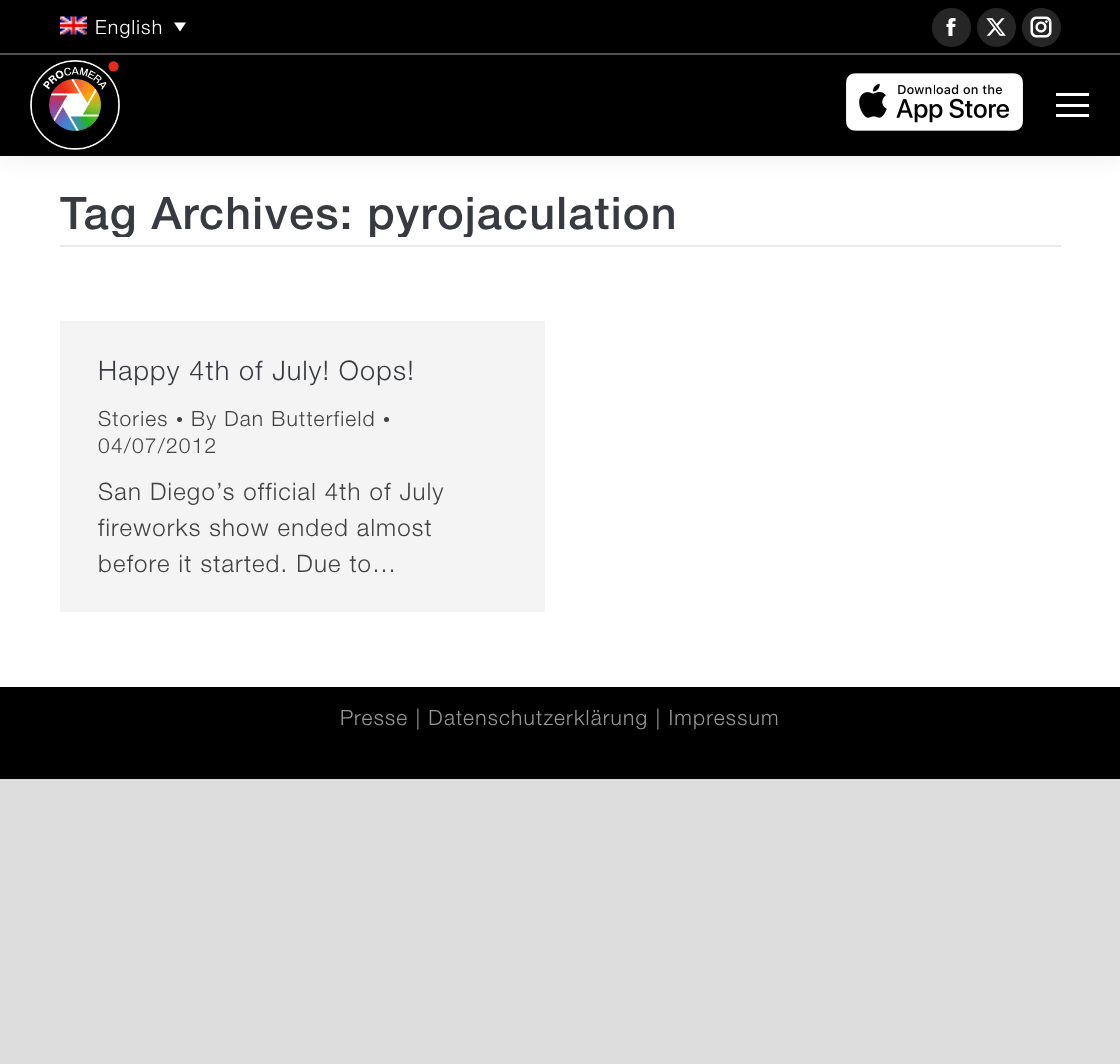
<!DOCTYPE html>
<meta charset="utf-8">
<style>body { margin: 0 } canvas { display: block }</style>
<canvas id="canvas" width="1120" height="1064"></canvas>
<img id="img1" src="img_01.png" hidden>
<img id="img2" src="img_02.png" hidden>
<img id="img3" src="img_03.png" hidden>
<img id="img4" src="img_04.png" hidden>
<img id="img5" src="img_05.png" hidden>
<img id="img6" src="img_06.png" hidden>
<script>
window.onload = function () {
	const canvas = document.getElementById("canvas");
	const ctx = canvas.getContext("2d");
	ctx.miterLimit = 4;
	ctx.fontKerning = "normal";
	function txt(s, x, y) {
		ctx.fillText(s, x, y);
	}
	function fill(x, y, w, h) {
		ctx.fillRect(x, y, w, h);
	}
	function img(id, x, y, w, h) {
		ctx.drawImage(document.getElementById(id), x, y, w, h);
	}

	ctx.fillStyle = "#DDDDDD";
	fill(0, 0, 1120, 1064);
	ctx.fillStyle = "#FFFFFF";
	fill(0, 156, 1120, 531);
	ctx.fillStyle = "rgba(0, 0, 0, 0.07)";
	ctx.filter = "blur(11px)";
	ctx.beginPath();
	ctx.rect(-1, -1, 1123, 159);
	ctx.fill();
	ctx.filter = "none";
	ctx.fillStyle = "#000000";
	fill(0, 0, 1120, 156);
	img("img1", 60, 16, 27, 19);
	ctx.fillStyle = "#FFFFFF";
	ctx.beginPath();
	ctx.moveTo(174, 22.5);
	ctx.lineTo(186, 22.5);
	ctx.lineTo(180, 31.5);
	ctx.closePath();
	ctx.fill();
	ctx.fillStyle = "#262626";
	ctx.beginPath();
	ctx.arc(951.5, 27.5, 19.5, 0, Math.PI * 2);
	ctx.fill();
	img("img2", 946, 18, 10, 18);
	ctx.beginPath();
	ctx.arc(996.5, 27.5, 19.5, 0, Math.PI * 2);
	ctx.fill();
	img("img3", 986, 18, 20, 18);
	ctx.beginPath();
	ctx.arc(1041.5, 27.5, 19.5, 0, Math.PI * 2);
	ctx.fill();
	img("img4", 1030, 16, 22, 22);
	ctx.fillStyle = "#515151";
	fill(0, 53, 1120, 2);
	img("img5", 30, 60, 90, 90);
	img("img6", 846, 73, 177, 58);
	ctx.fillStyle = "#FFFFFF";
	fill(1056, 93, 33, 3);
	fill(1056, 104, 33, 3);
	fill(1056, 114, 33, 3);
	ctx.fillStyle = "#E9E9E9";
	fill(60, 245, 1001, 2);
	ctx.fillStyle = "#F4F4F4";
	fill(60, 321, 485, 291);
	ctx.fillStyle = "#424242";
	ctx.beginPath();
	ctx.arc(179.5, 419.5, 2.5, 0, Math.PI * 2);
	ctx.fill();
	ctx.beginPath();
	ctx.arc(386.5, 419.5, 2.5, 0, Math.PI * 2);
	ctx.fill();
	ctx.fillStyle = "#000000";
	fill(0, 687, 1120, 92);
	ctx.letterSpacing = "1.2px";
	ctx.font = "300 19.5px Helvetica";
	ctx.fillStyle = "#FFFFFF";
	txt("English", 95, 34);
	ctx.save();
	ctx.beginPath();
	ctx.rect(60, 189, 618, 48);
	ctx.clip();
	ctx.font = "500 45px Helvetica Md";
	ctx.fillStyle = "#373A41";
	txt("Tag Archives: pyrojaculation", 60, 229);
	ctx.restore();
	ctx.font = "300 27px Helvetica";
	ctx.fillStyle = "#373A41";
	txt("Happy 4th of July! Oops!", 98, 380);
	ctx.font = "300 21px Helvetica";
	ctx.fillStyle = "#424242";
	txt("Stories", 98, 426);
	txt("By Dan Butterfield", 191, 426);
	txt("04/07/2012", 98, 453);
	ctx.font = "300 24px Helvetica";
	txt("San Diego’s official 4th of July", 98, 500);
	txt("fireworks show ended almost", 98, 536);
	txt("before it started. Due to…", 98, 572);
	ctx.font = "300 21px Helvetica";
	ctx.fillStyle = "#969798";
	txt("Presse | Datenschutzerklärung | Impressum", 340, 725);
};
</script>
